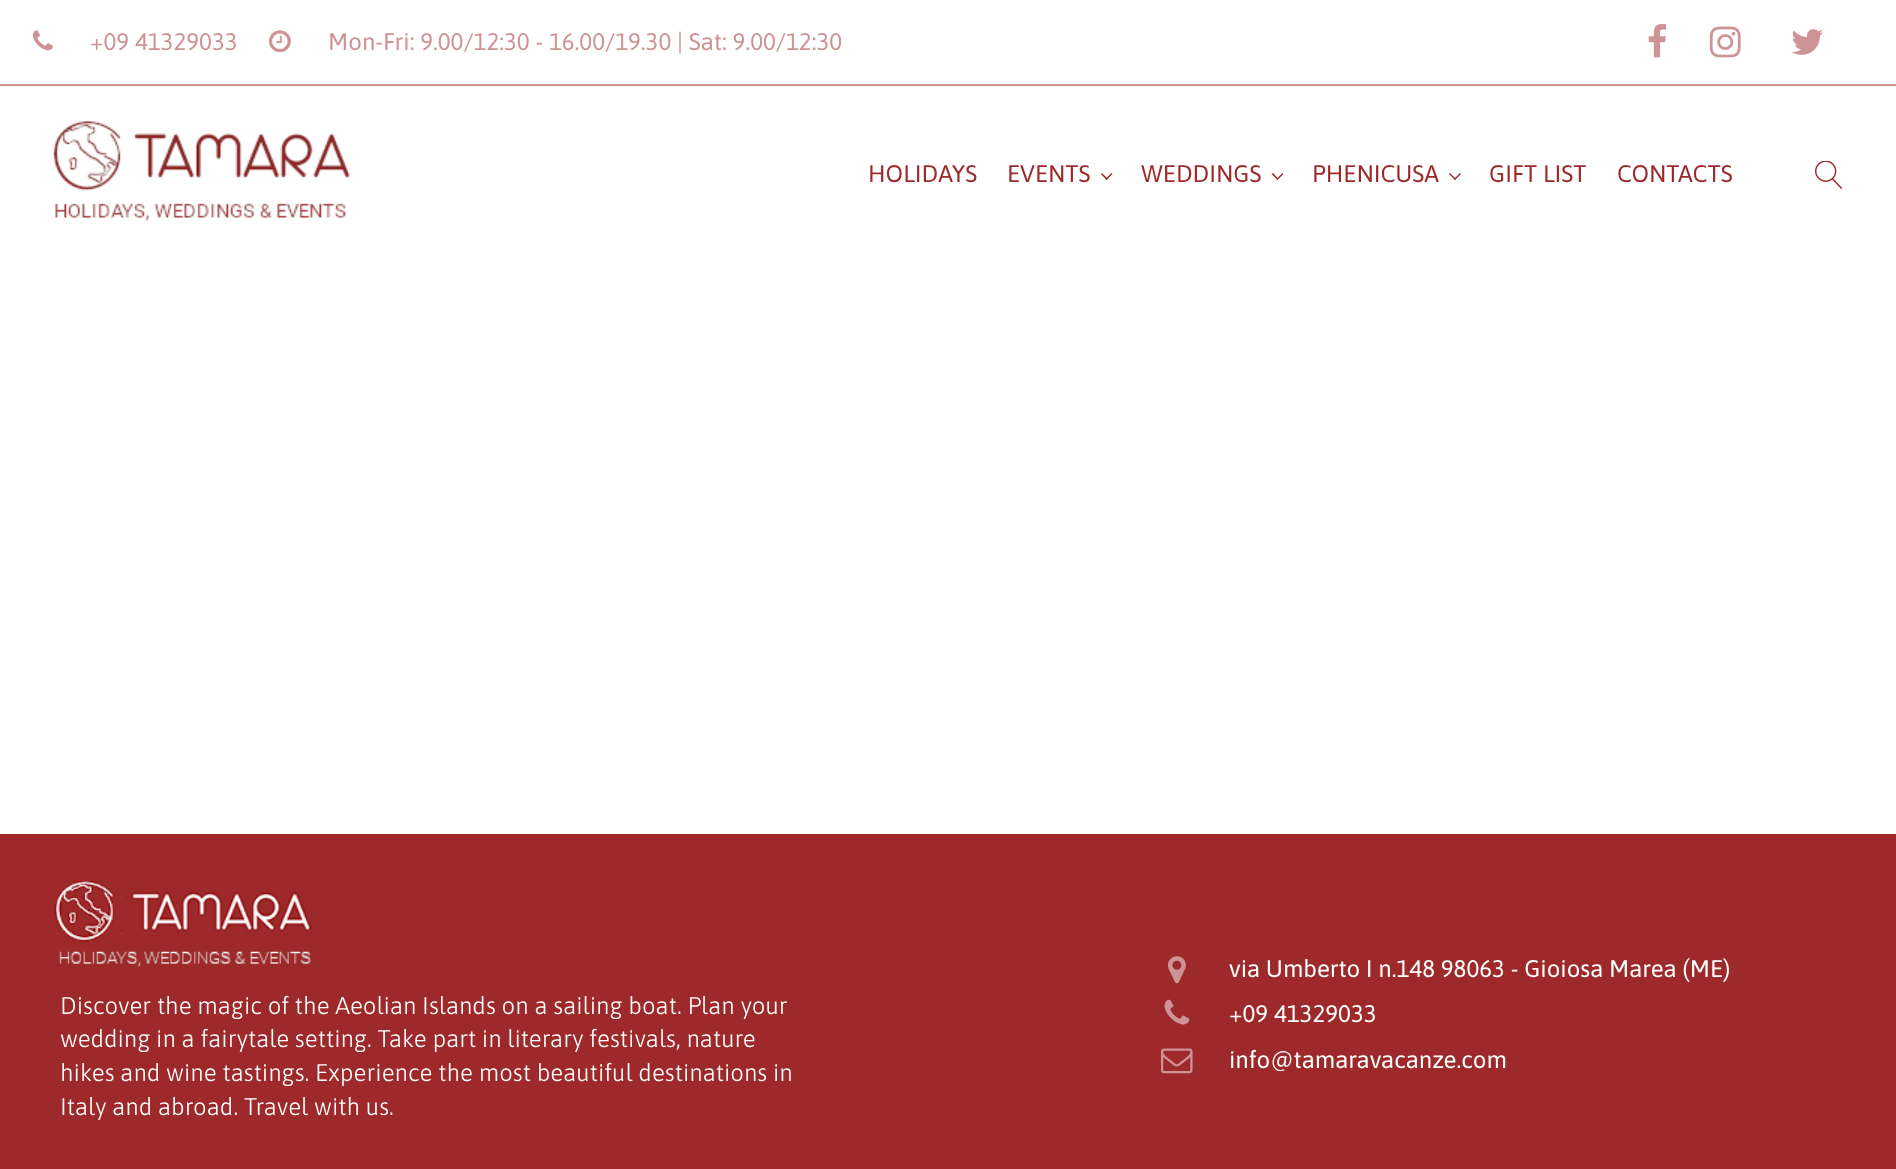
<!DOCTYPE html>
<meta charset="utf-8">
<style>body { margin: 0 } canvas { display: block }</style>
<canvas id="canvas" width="1896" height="1169"></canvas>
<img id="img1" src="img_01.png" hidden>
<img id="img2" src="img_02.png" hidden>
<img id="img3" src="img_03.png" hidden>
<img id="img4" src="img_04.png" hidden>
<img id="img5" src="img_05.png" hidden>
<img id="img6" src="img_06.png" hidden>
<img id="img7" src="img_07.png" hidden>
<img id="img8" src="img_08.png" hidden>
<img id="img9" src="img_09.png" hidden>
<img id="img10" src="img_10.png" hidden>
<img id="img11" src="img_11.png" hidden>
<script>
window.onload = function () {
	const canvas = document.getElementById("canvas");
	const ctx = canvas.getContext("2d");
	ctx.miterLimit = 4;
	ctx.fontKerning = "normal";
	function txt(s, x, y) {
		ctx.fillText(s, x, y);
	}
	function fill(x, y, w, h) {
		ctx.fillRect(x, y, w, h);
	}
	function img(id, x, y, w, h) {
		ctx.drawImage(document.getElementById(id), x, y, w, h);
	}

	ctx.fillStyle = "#FFFFFF";
	fill(0, 0, 1896, 1169);
	ctx.fillStyle = "#CE9394";
	fill(0, 84, 1896, 2);
	img("img1", 32, 30, 21, 21);
	img("img2", 269, 30, 22, 23);
	img("img3", 1648, 24, 19, 34);
	img("img4", 1709, 26, 32, 32);
	img("img5", 1791, 29, 32, 26);
	img("img6", 53, 121, 297, 100);
	ctx.fillStyle = "#9D292A";
	ctx.beginPath();
	ctx.moveTo(1112.5, 174);
	ctx.lineTo(1106.5, 180);
	ctx.lineTo(1105.5, 179);
	ctx.lineTo(1111.5, 173);
	ctx.closePath();
	ctx.fill();
	ctx.beginPath();
	ctx.moveTo(1108, 179);
	ctx.lineTo(1106.5, 180);
	ctx.lineTo(1101, 174);
	ctx.lineTo(1102, 173);
	ctx.closePath();
	ctx.fill();
	ctx.beginPath();
	ctx.moveTo(1283.5, 174);
	ctx.lineTo(1277.5, 180);
	ctx.lineTo(1276.5, 179);
	ctx.lineTo(1282.5, 173);
	ctx.closePath();
	ctx.fill();
	ctx.beginPath();
	ctx.moveTo(1278.5, 179);
	ctx.lineTo(1277.5, 180);
	ctx.lineTo(1271.5, 174);
	ctx.lineTo(1273, 173);
	ctx.closePath();
	ctx.fill();
	ctx.beginPath();
	ctx.moveTo(1461, 174);
	ctx.lineTo(1455, 180);
	ctx.lineTo(1454, 179);
	ctx.lineTo(1460, 173);
	ctx.closePath();
	ctx.fill();
	ctx.beginPath();
	ctx.moveTo(1456, 179);
	ctx.lineTo(1455, 180);
	ctx.lineTo(1449, 174);
	ctx.lineTo(1450, 173);
	ctx.closePath();
	ctx.fill();
	img("img7", 1815, 161, 27, 28);
	fill(0, 834, 1896, 335);
	img("img8", 54, 881, 258, 86);
	img("img9", 1167, 956, 19, 28);
	img("img10", 1164, 999, 26, 26);
	img("img11", 1161, 1048, 32, 26);
	ctx.font = "24px Asap";
	ctx.fillStyle = "#CE9394";
	txt("+09 41329033", 90, 50);
	txt("Mon-Fri: 9.00/12:30 - 16.00/19.30 | Sat: 9.00/12:30", 328, 50);
	ctx.fillStyle = "#9D292A";
	txt("HOLIDAYS", 868, 182);
	txt("EVENTS", 1007, 182);
	txt("WEDDINGS", 1141, 182);
	txt("PHENICUSA", 1312, 182);
	txt("GIFT LIST", 1489, 182);
	txt("CONTACTS", 1617, 182);
	ctx.font = "300 24px Asap";
	ctx.fillStyle = "#FFFFFF";
	txt("Discover the magic of the Aeolian Islands on a sailing boat. Plan your", 60, 1014);
	txt("wedding in a fairytale setting. Take part in literary festivals, nature", 60, 1047);
	txt("hikes and wine tastings. Experience the most beautiful destinations in", 60, 1081);
	txt("Italy and abroad. Travel with us.", 60, 1115);
	ctx.font = "24px Asap";
	txt("via Umberto I n.148 98063 - Gioiosa Marea (ME)", 1229, 977);
	txt("+09 41329033", 1229, 1022);
	txt("info@tamaravacanze.com", 1229, 1068);
};
</script>
